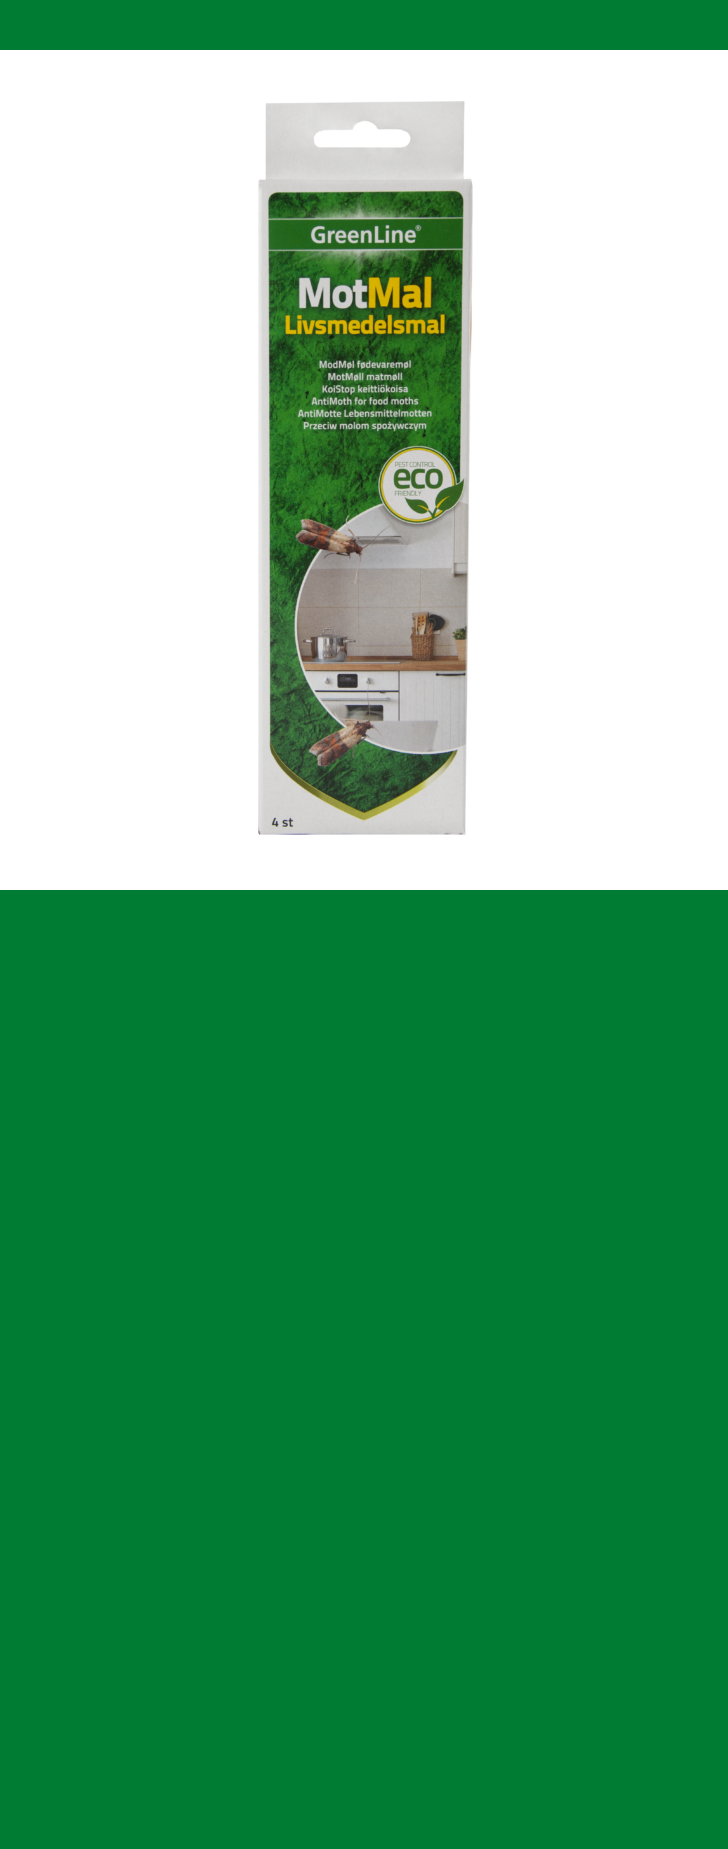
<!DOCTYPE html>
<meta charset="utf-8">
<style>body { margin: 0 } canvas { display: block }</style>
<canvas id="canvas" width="728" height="1849"></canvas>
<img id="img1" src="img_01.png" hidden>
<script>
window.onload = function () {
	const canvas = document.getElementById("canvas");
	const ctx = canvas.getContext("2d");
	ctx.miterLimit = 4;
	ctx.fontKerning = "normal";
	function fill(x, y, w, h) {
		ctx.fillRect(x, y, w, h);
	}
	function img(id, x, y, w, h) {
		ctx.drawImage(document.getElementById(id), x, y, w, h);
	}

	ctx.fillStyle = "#007D32";
	fill(0, 0, 728, 1849);
	ctx.fillStyle = "#FFFFFF";
	fill(0, 50, 728, 840);
	img("img1", 258, 101, 215, 734);
};
</script>
